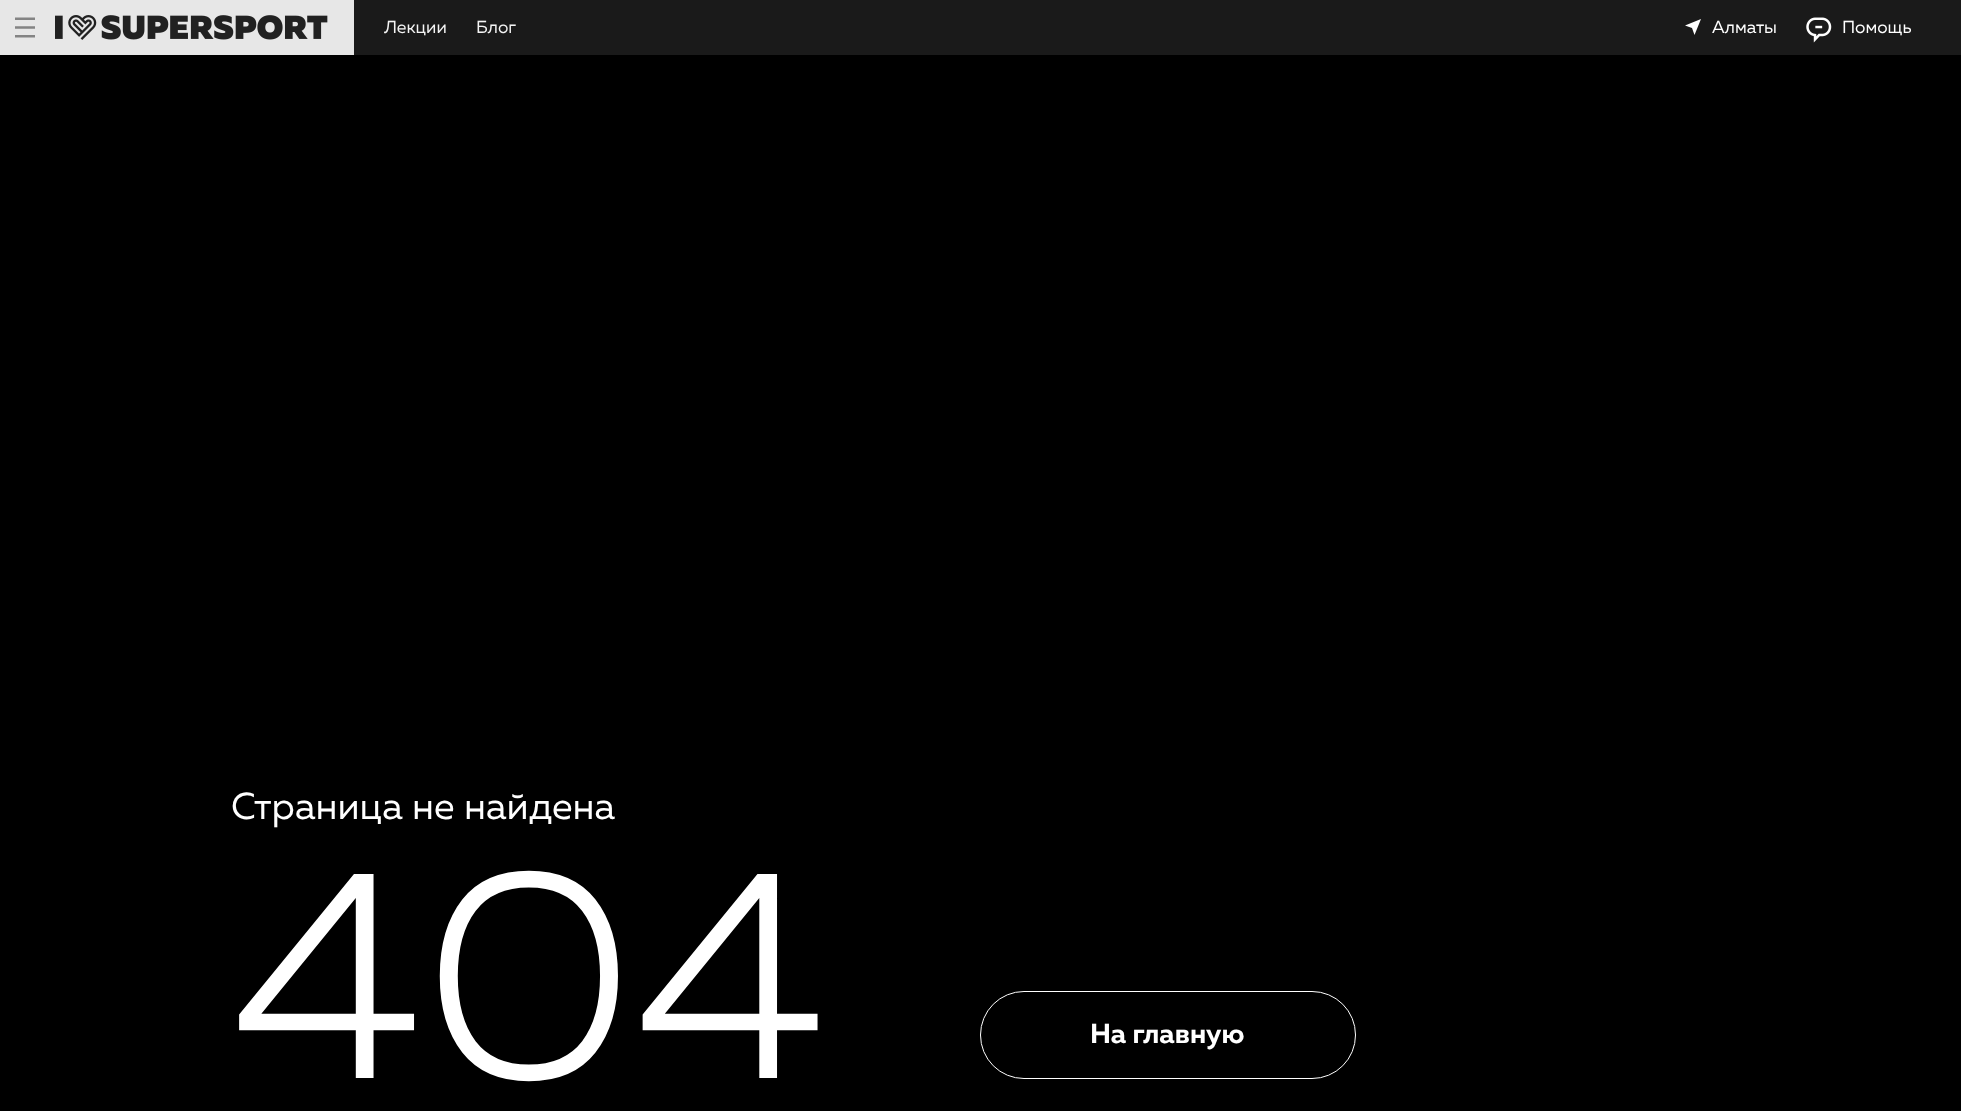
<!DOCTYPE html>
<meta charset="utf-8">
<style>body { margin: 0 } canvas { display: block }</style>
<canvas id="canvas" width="1961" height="1111"></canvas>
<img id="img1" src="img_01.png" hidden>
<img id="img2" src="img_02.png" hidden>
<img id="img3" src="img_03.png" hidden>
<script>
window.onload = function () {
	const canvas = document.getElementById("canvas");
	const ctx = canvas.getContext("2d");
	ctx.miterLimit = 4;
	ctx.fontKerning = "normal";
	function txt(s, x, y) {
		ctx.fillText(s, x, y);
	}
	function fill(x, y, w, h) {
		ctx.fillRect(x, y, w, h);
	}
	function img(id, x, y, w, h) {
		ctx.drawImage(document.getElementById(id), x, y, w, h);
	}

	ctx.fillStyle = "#000000";
	fill(0, 0, 1961, 1111);
	ctx.fillStyle = "#1A1A1A";
	fill(354, 0, 1607, 55);
	ctx.fillStyle = "#E7E7E7";
	fill(0, 0, 354, 55);
	img("img1", 15, 17, 20, 21);
	img("img2", 55, 15, 273, 25);
	ctx.fillStyle = "#FFFFFF";
	ctx.beginPath();
	ctx.moveTo(1701, 19);
	ctx.lineTo(1685, 25.5);
	ctx.lineTo(1692, 28);
	ctx.lineTo(1694.5, 35);
	ctx.closePath();
	ctx.fill();
	img("img3", 1806, 17, 26, 26);
	ctx.beginPath();
	ctx.roundRect(980.5, 991.5, 375, 87, 43.5);
	ctx.strokeStyle = "#FFFFFF";
	ctx.stroke();
	ctx.font = "17.5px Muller";
	ctx.fillStyle = "#F4F4F4";
	txt("Лекции", 384, 33);
	txt("Блог", 476, 33);
	ctx.fillStyle = "#FFFFFF";
	txt("Алматы", 1712, 33);
	txt("Помощь", 1842, 33);
	ctx.font = "37.5px Muller";
	txt("Страница не найдена", 231, 819);
	ctx.font = "300 300px Muller";
	txt("404", 231, 1078);
	ctx.font = "bold 27.5px Muller";
	txt("На главную", 1090, 1043);
};
</script>
